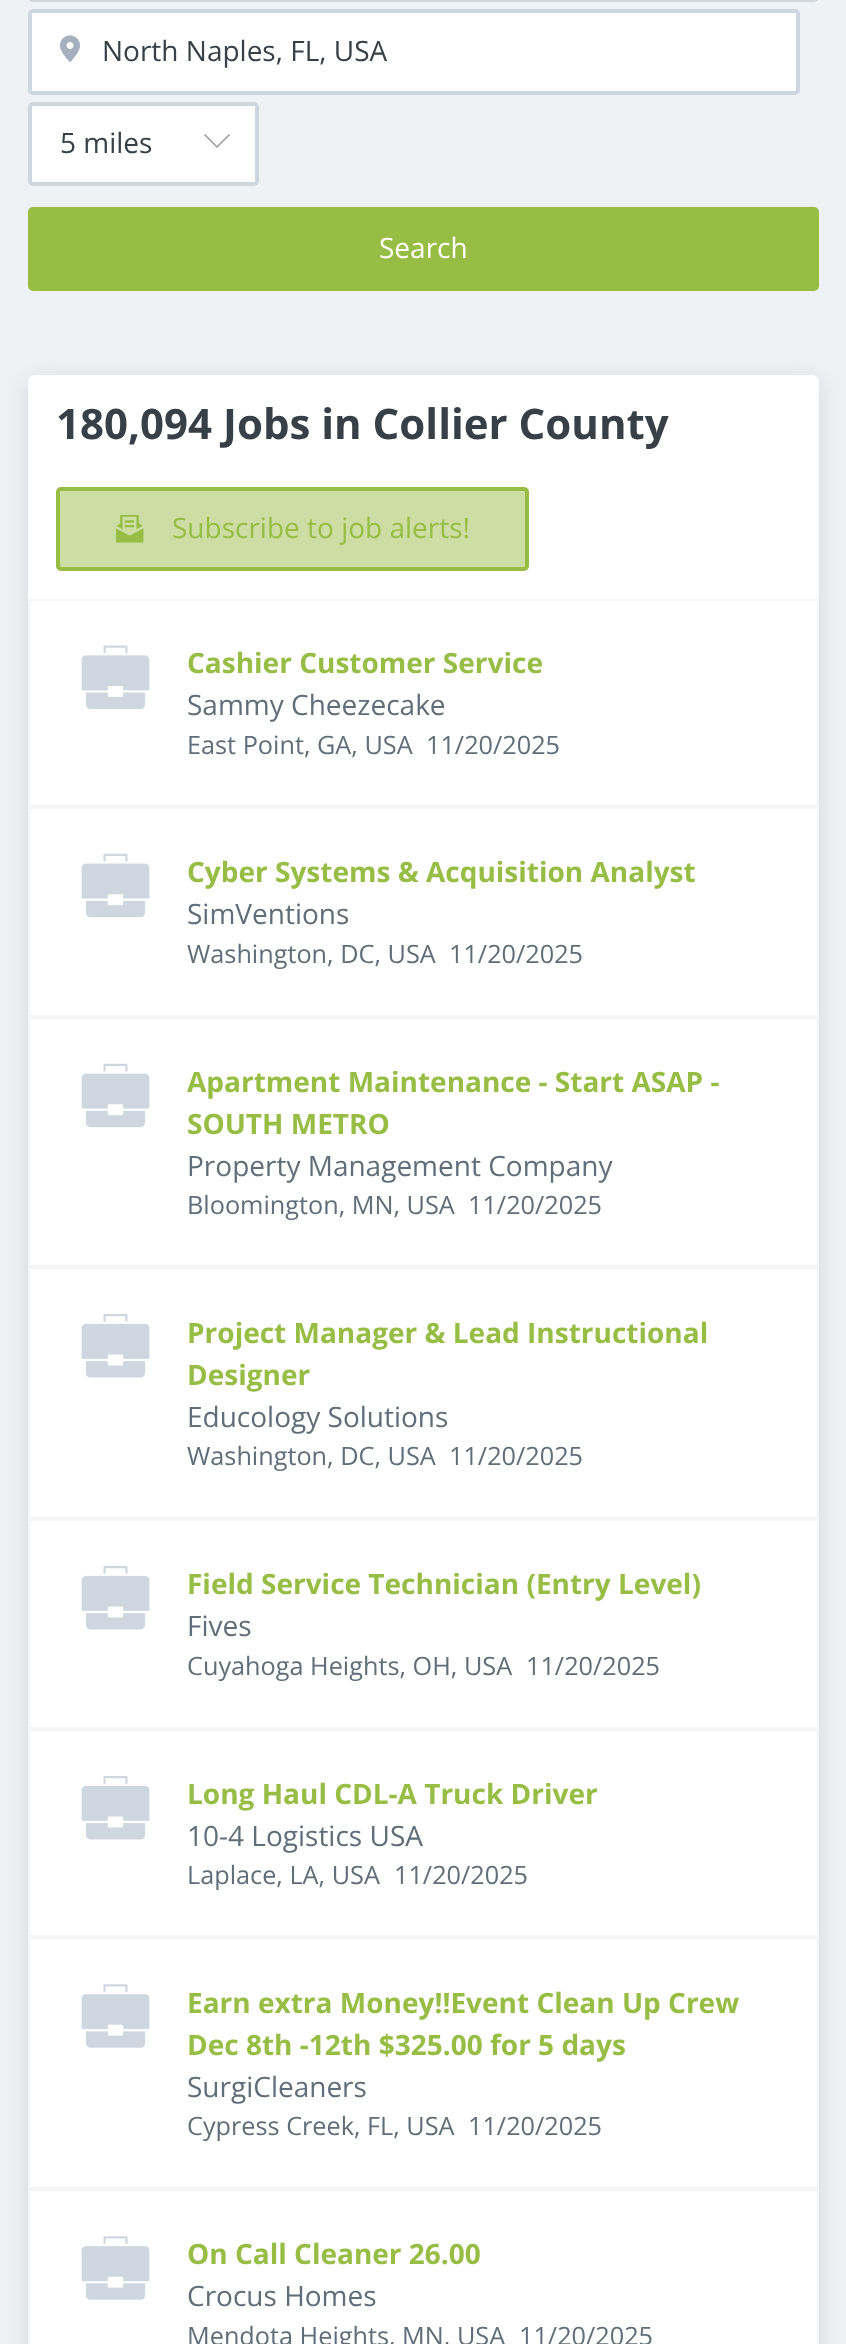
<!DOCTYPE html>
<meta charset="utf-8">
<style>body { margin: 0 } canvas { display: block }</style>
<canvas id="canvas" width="846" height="2344"></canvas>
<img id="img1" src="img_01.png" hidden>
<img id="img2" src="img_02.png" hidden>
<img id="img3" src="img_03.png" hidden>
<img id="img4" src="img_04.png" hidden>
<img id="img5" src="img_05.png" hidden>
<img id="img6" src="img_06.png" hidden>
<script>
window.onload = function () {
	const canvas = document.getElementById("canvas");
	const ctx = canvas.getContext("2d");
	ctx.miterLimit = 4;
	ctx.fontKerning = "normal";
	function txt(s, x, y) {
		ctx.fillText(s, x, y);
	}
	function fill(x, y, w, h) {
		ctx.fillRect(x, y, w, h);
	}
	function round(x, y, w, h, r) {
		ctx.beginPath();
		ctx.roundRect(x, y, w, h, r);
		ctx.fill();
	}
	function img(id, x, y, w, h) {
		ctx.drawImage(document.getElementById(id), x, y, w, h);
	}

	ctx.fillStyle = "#EFF2F4";
	fill(0, 0, 846, 2344);
	ctx.beginPath();
	ctx.roundRect(30, -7, 787, 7, 3);
	ctx.strokeStyle = "#CED7E0";
	ctx.lineWidth = 4;
	ctx.stroke();
	ctx.fillStyle = "#FFFFFF";
	ctx.beginPath();
	ctx.roundRect(30, 11, 768, 82, 3);
	ctx.fill();
	ctx.stroke();
	img("img1", 60, 35, 20, 27);
	ctx.beginPath();
	ctx.roundRect(30, 104, 227, 80, 3);
	ctx.fill();
	ctx.stroke();
	ctx.beginPath();
	ctx.moveTo(204.5, 134.5);
	ctx.lineTo(217, 147);
	ctx.lineTo(229.5, 134.5);
	ctx.strokeStyle = "#979797";
	ctx.lineWidth = 1.5;
	ctx.stroke();
	ctx.fillStyle = "#97BD45";
	ctx.beginPath();
	ctx.roundRect(30, 209, 787, 80, 3);
	ctx.fill();
	ctx.strokeStyle = "#97BD45";
	ctx.lineWidth = 4;
	ctx.stroke();
	ctx.fillStyle = "rgba(0, 0, 0, 0.1)";
	ctx.filter = "blur(13px)";
	ctx.beginPath();
	ctx.roundRect(28, 380, 791, 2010, 7);
	ctx.fill();
	ctx.filter = "none";
	ctx.fillStyle = "#FFFFFF";
	round(28, 375, 791, 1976, 7);
	ctx.fillStyle = "#CCDEA3";
	ctx.beginPath();
	ctx.roundRect(58, 489, 469, 80, 3);
	ctx.fill();
	ctx.stroke();
	img("img2", 116, 515, 28, 28);
	ctx.strokeStyle = "#F5F5F5";
	ctx.lineWidth = 2;
	ctx.strokeRect(29, 600, 789, 206);
	img("img3", 81, 645, 69, 64);
	ctx.strokeRect(29, 808, 789, 208);
	img("img4", 81, 853, 69, 65);
	ctx.strokeRect(29, 1018, 789, 248);
	img("img4", 81, 1063, 69, 65);
	ctx.strokeRect(29, 1268, 789, 250);
	img("img5", 81, 1314, 69, 64);
	ctx.strokeRect(29, 1520, 789, 208);
	img("img5", 81, 1566, 69, 64);
	ctx.strokeRect(29, 1730, 789, 206);
	img("img5", 81, 1776, 69, 64);
	ctx.strokeRect(29, 1938, 789, 250);
	img("img6", 81, 1984, 69, 64);
	ctx.strokeRect(29, 2190, 789, 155);
	img("img6", 81, 2236, 69, 64);
	ctx.font = "28px Open Sans";
	ctx.fillStyle = "#374047";
	txt("North Naples, FL, USA", 102, 61);
	txt("5 miles", 60, 153);
	ctx.fillStyle = "#FFFFFF";
	txt("Search", 379, 258);
	ctx.font = "bold 42px Open Sans";
	ctx.fillStyle = "#374047";
	txt("180,094 Jobs in Collier County", 56, 439);
	ctx.font = "28px Open Sans";
	ctx.fillStyle = "#97BD45";
	txt("Subscribe to job alerts!", 172, 538);
	ctx.font = "bold 28px Open Sans";
	txt("Cashier Customer Service", 187, 673);
	ctx.font = "28px Open Sans";
	ctx.fillStyle = "#5F6E78";
	txt("Sammy Cheezecake", 187, 715);
	ctx.font = "25.25px Open Sans";
	txt("East Point, GA, USA", 187, 754);
	txt("11/20/2025", 426, 754);
	ctx.font = "bold 28px Open Sans";
	ctx.fillStyle = "#97BD45";
	txt("Cyber Systems & Acquisition Analyst", 187, 882);
	ctx.font = "28px Open Sans";
	ctx.fillStyle = "#5F6E78";
	txt("SimVentions", 187, 924);
	ctx.font = "25.25px Open Sans";
	txt("Washington, DC, USA", 187, 963);
	txt("11/20/2025", 449, 963);
	ctx.font = "bold 28px Open Sans";
	ctx.fillStyle = "#97BD45";
	txt("Apartment Maintenance - Start ASAP -", 187, 1092);
	txt("SOUTH METRO", 187, 1134);
	ctx.font = "28px Open Sans";
	ctx.fillStyle = "#5F6E78";
	txt("Property Management Company", 187, 1176);
	ctx.font = "25.25px Open Sans";
	txt("Bloomington, MN, USA", 187, 1214);
	txt("11/20/2025", 468, 1214);
	ctx.font = "bold 28px Open Sans";
	ctx.fillStyle = "#97BD45";
	txt("Project Manager & Lead Instructional", 187, 1343);
	txt("Designer", 187, 1385);
	ctx.font = "28px Open Sans";
	ctx.fillStyle = "#5F6E78";
	txt("Educology Solutions", 187, 1427);
	ctx.font = "25.25px Open Sans";
	txt("Washington, DC, USA", 187, 1465);
	txt("11/20/2025", 449, 1465);
	ctx.font = "bold 28px Open Sans";
	ctx.fillStyle = "#97BD45";
	txt("Field Service Technician (Entry Level)", 187, 1594);
	ctx.font = "28px Open Sans";
	ctx.fillStyle = "#5F6E78";
	txt("Fives", 187, 1636);
	ctx.font = "25.25px Open Sans";
	txt("Cuyahoga Heights, OH, USA", 187, 1675);
	txt("11/20/2025", 526, 1675);
	ctx.font = "bold 28px Open Sans";
	ctx.fillStyle = "#97BD45";
	txt("Long Haul CDL-A Truck Driver", 187, 1804);
	ctx.font = "28px Open Sans";
	ctx.fillStyle = "#5F6E78";
	txt("10-4 Logistics USA", 187, 1846);
	ctx.font = "25.25px Open Sans";
	txt("Laplace, LA, USA", 187, 1884);
	txt("11/20/2025", 394, 1884);
	ctx.font = "bold 28px Open Sans";
	ctx.fillStyle = "#97BD45";
	txt("Earn extra Money!!Event Clean Up Crew", 187, 2013);
	txt("Dec 8th -12th $325.00 for 5 days", 187, 2055);
	ctx.font = "28px Open Sans";
	ctx.fillStyle = "#5F6E78";
	txt("SurgiCleaners", 187, 2097);
	ctx.font = "25.25px Open Sans";
	txt("Cypress Creek, FL, USA", 187, 2135);
	txt("11/20/2025", 468, 2135);
	ctx.font = "bold 28px Open Sans";
	ctx.fillStyle = "#97BD45";
	txt("On Call Cleaner 26.00", 187, 2264);
	ctx.font = "28px Open Sans";
	ctx.fillStyle = "#5F6E78";
	txt("Crocus Homes", 187, 2306);
	ctx.font = "25.25px Open Sans";
	txt("Mendota Heights, MN, USA", 187, 2345);
	txt("11/20/2025", 519, 2345);
};
</script>
